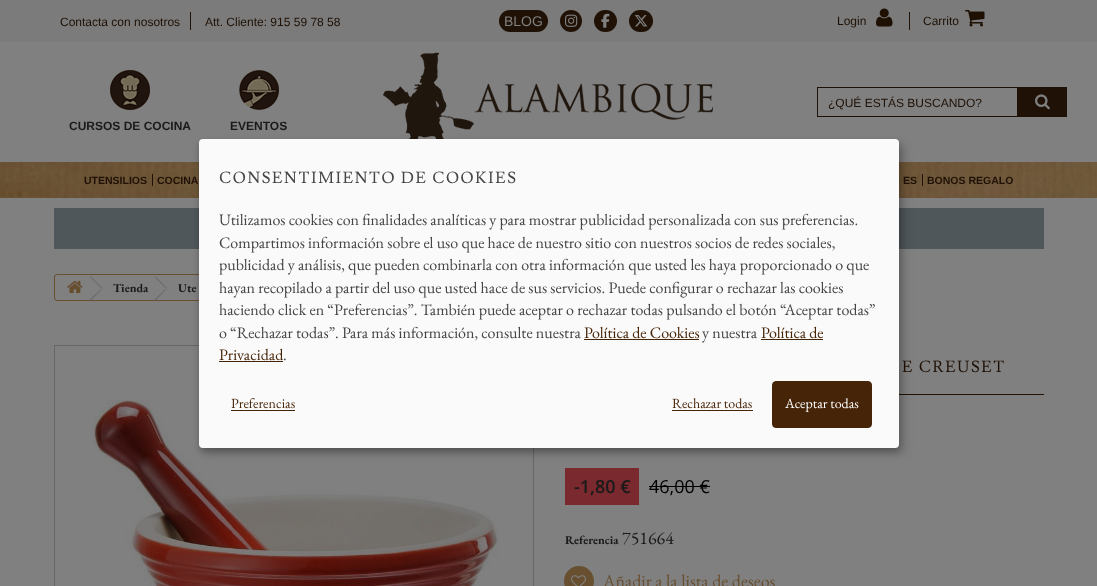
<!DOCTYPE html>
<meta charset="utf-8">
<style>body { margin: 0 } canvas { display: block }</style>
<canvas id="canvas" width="1097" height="586"></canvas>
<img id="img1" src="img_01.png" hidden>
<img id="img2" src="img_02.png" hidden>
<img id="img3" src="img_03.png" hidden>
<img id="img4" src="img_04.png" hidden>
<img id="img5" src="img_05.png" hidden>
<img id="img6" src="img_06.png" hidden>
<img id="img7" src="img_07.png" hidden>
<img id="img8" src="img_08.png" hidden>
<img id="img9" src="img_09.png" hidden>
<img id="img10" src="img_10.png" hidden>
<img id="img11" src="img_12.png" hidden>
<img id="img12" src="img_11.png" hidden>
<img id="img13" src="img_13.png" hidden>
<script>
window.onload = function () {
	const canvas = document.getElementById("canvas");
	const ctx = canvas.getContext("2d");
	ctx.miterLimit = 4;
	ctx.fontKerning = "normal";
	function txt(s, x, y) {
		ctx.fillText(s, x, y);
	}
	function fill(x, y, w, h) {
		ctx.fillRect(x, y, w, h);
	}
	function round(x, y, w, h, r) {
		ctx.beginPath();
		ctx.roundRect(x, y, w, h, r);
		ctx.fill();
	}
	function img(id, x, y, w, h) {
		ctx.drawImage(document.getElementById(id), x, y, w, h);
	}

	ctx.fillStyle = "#808080";
	fill(0, 0, 1097, 586);
	ctx.fillStyle = "#7B7B7B";
	fill(0, 0, 1097, 42);
	ctx.fillStyle = "#1F1105";
	fill(190, 12, 1, 18);
	round(499, 10, 49, 22, 11);
	ctx.beginPath();
	ctx.arc(571, 21, 11, 0, Math.PI * 2);
	ctx.fill();
	img("img1", 565, 14, 13, 13);
	round(594, 10, 23, 22, 11);
	img("img2", 601, 13, 9, 15);
	round(629, 10, 24, 22, 11);
	img("img3", 634, 15, 14, 12);
	img("img4", 876, 8, 17, 19);
	fill(909, 12, 1, 18);
	img("img5", 965, 10, 20, 17);
	img("img6", 383, 52, 330, 87);
	ctx.strokeStyle = "#1F1105";
	ctx.strokeRect(817.5, 87.5, 249, 29);
	fill(1017, 88, 49, 28);
	img("img7", 1035, 94, 15, 16);
	img("img8", 110, 70, 40, 40);
	img("img9", 239, 70, 40, 40);
	img("img10", 0, 162, 1097, 36);
	fill(152, 174, 1, 12);
	fill(922, 174, 1, 12);
	ctx.fillStyle = "#4F575A";
	fill(54, 208, 990, 41);
	ctx.beginPath();
	ctx.roundRect(54.5, 274.5, 539, 26, 2.5);
	ctx.strokeStyle = "#674F2F";
	ctx.stroke();
	ctx.strokeStyle = "#666666";
	ctx.strokeRect(54.5, 345.5, 479, 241);
	img("img11", 93, 400, 406, 186);
	ctx.fillStyle = "#231204";
	fill(899, 394, 145, 1);
	ctx.fillStyle = "#7A292E";
	fill(565, 468, 74, 37);
	ctx.fillStyle = "rgba(0, 0, 0, 0.19)";
	ctx.filter = "blur(5px)";
	ctx.beginPath();
	ctx.roundRect(204, 144, 700, 309, 4);
	ctx.fill();
	ctx.filter = "none";
	ctx.fillStyle = "rgba(0, 0, 0, 0.2)";
	ctx.filter = "blur(3px)";
	ctx.beginPath();
	ctx.roundRect(199, 143, 700, 309, 4);
	ctx.fill();
	ctx.filter = "none";
	ctx.fillStyle = "#FAFAFA";
	round(199, 139, 700, 309, 4);
	ctx.fillStyle = "#462408";
	fill(584, 339, 115, 1);
	fill(761, 339, 62, 1);
	fill(219, 361, 64, 1);
	fill(231, 410, 64, 1);
	fill(672, 410, 81, 1);
	ctx.beginPath();
	ctx.roundRect(772.5, 381.5, 99, 46, 3.5);
	ctx.fill();
	ctx.strokeStyle = "#462408";
	ctx.stroke();
	img("img12", 67, 280, 16, 13);
	ctx.fillStyle = "#6B6A6A";
	ctx.beginPath();
	ctx.moveTo(91, 276.5);
	ctx.lineTo(102, 287.5);
	ctx.lineTo(101.5, 288.5);
	ctx.lineTo(90, 277);
	ctx.closePath();
	ctx.fill();
	ctx.beginPath();
	ctx.moveTo(101.5, 288.5);
	ctx.lineTo(102, 289);
	ctx.lineTo(91, 300.5);
	ctx.lineTo(90, 299.5);
	ctx.closePath();
	ctx.fill();
	ctx.fillStyle = "#808080";
	ctx.beginPath();
	ctx.moveTo(166, 277);
	ctx.lineTo(176, 287);
	ctx.bezierCurveTo(176.5, 288, 176.5, 289, 176, 290);
	ctx.lineTo(166, 299.5);
	ctx.bezierCurveTo(165, 300.5, 164, 300.5, 163, 299.5);
	ctx.lineTo(153, 290);
	ctx.bezierCurveTo(152.5, 289, 152.5, 288, 153, 287);
	ctx.lineTo(163, 277);
	ctx.bezierCurveTo(164, 276.5, 165, 276.5, 166, 277);
	ctx.closePath();
	ctx.fill();
	ctx.fillStyle = "#6B6A6A";
	ctx.beginPath();
	ctx.moveTo(155.5, 276.5);
	ctx.lineTo(166.5, 287.5);
	ctx.lineTo(166, 288.5);
	ctx.lineTo(154.5, 277);
	ctx.closePath();
	ctx.fill();
	ctx.beginPath();
	ctx.moveTo(166, 288.5);
	ctx.lineTo(166.5, 289);
	ctx.lineTo(155.5, 300.5);
	ctx.lineTo(154.5, 299.5);
	ctx.closePath();
	ctx.fill();
	ctx.fillStyle = "#000000";
	fill(649, 486, 61, 1);
	ctx.fillStyle = "#674F2F";
	ctx.beginPath();
	ctx.arc(579, 581, 15, 0, Math.PI * 2);
	ctx.fill();
	img("img13", 571, 575, 15, 11);
	ctx.font = "12px Liberation Sans";
	ctx.fillStyle = "#1F1105";
	txt("Contacta con nosotros", 60, 26);
	txt("Att. Cliente: 915 59 78 58", 205, 26);
	ctx.font = "14px Liberation Sans";
	ctx.fillStyle = "#808080";
	txt("BLOG", 504, 26);
	ctx.font = "12px Liberation Sans";
	ctx.fillStyle = "#1F1105";
	txt("Login", 837, 25);
	txt("Carrito", 923, 25);
	txt("¿QUÉ ESTÁS BUSCANDO?", 828, 107);
	ctx.font = "bold 12px Liberation Sans";
	ctx.fillStyle = "#1A1A1A";
	txt("CURSOS DE COCINA", 69, 130);
	txt("EVENTOS", 230, 130);
	ctx.font = "bold 10.5px Liberation Sans";
	ctx.fillStyle = "#1F1105";
	txt("UTENSILIOS", 84, 184);
	txt("COCINA", 157, 184);
	txt("ES", 903, 184);
	txt("BONOS REGALO", 927, 184);
	ctx.letterSpacing = "1.6px";
	ctx.font = "16px Lusitana";
	ctx.fillStyle = "#444444";
	txt("CONSENTIMIENTO DE COOKIES", 219, 183);
	ctx.letterSpacing = "0px";
	ctx.font = "16px EB Garamond";
	txt("Utilizamos cookies con finalidades analíticas y para mostrar publicidad personalizada con sus preferencias.", 219, 225);
	txt("Compartimos información sobre el uso que hace de nuestro sitio con nuestros socios de redes sociales,", 219, 248);
	txt("publicidad y análisis, que pueden combinarla con otra información que usted les haya proporcionado o que", 219, 270);
	txt("hayan recopilado a partir del uso que usted hace de sus servicios. Puede configurar o rechazar las cookies", 219, 293);
	txt("haciendo click en “Preferencias”. También puede aceptar o rechazar todas pulsando el botón “Aceptar todas”", 219, 315);
	txt("o “Rechazar todas”. Para más información, consulte nuestra", 219, 338);
	ctx.fillStyle = "#462408";
	txt("Política de Cookies", 584, 338);
	ctx.fillStyle = "#444444";
	txt("y nuestra", 702, 338);
	ctx.fillStyle = "#462408";
	txt("Política de", 761, 338);
	txt("Privacidad", 219, 360);
	ctx.fillStyle = "#444444";
	txt(".", 283, 360);
	ctx.font = "14px EB Garamond";
	ctx.fillStyle = "#462408";
	txt("Preferencias", 231, 408);
	txt("Rechazar todas", 672, 408);
	ctx.fillStyle = "#FFFFFF";
	txt("Aceptar todas", 785, 408);
	ctx.font = "bold 12px EB Garamond";
	ctx.fillStyle = "#1A1A1A";
	txt("Tienda", 113, 292);
	txt("Ute", 178, 292);
	ctx.letterSpacing = "1.6px";
	ctx.font = "16px Lusitana";
	ctx.fillStyle = "#1F1105";
	txt("E CREUSET", 902, 372);
	ctx.letterSpacing = "0px";
	ctx.font = "600 18px Open Sans";
	ctx.fillStyle = "#1A1A1A";
	txt("-1,80 €", 574, 493);
	ctx.font = "18px Open Sans";
	ctx.fillStyle = "#000000";
	txt("46,00 €", 649, 493);
	ctx.font = "bold 12px EB Garamond";
	ctx.fillStyle = "#1A1A1A";
	txt("Referencia", 565, 544);
	ctx.font = "18px EB Garamond";
	txt("751664", 622, 544);
	ctx.fillStyle = "#674F2F";
	txt("Añadir a la lista de deseos", 603, 587);
};
</script>
